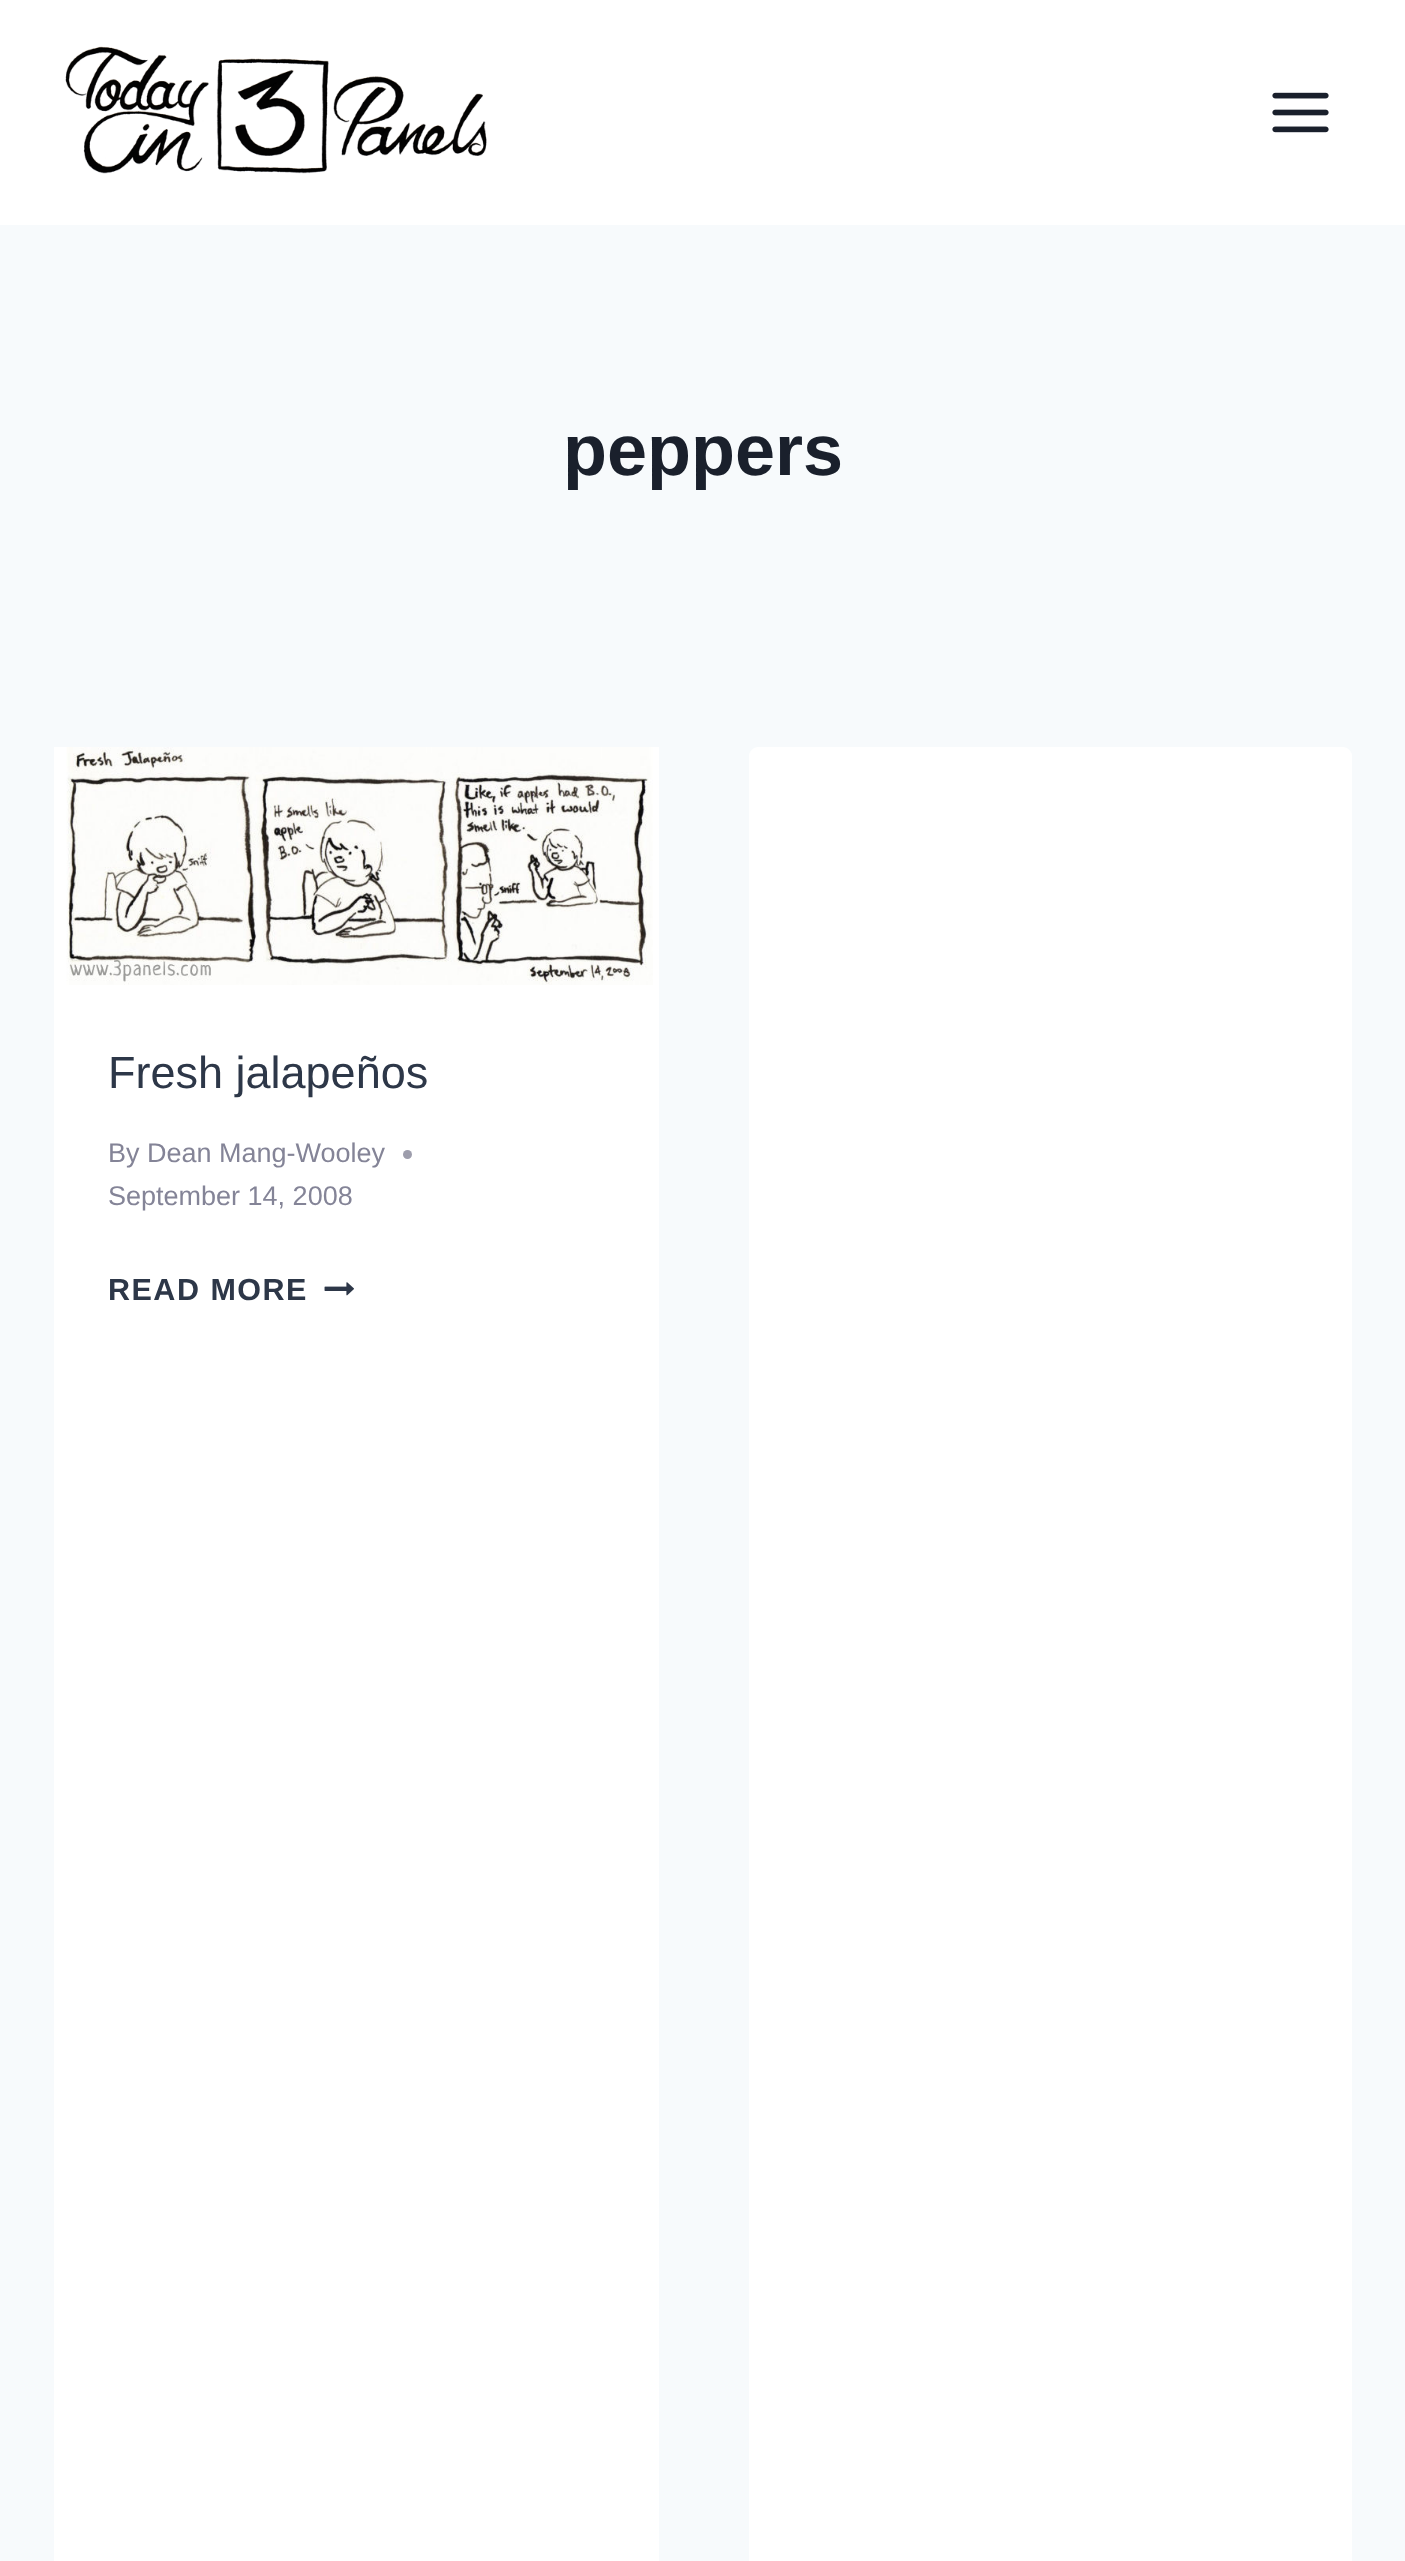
<!DOCTYPE html>
<meta charset="utf-8">
<style>body { margin: 0 } canvas { display: block }</style>
<canvas id="canvas" width="1405" height="2561"></canvas>
<img id="img1" src="img_01.png" hidden>
<img id="img2" src="img_02.png" hidden>
<img id="img3" src="img_03.png" hidden>
<img id="img4" src="img_04.png" hidden>
<script>
window.onload = function () {
	const canvas = document.getElementById("canvas");
	const ctx = canvas.getContext("2d");
	ctx.miterLimit = 4;
	ctx.fontKerning = "normal";
	function txt(s, x, y) {
		ctx.fillText(s, x, y);
	}
	function fill(x, y, w, h) {
		ctx.fillRect(x, y, w, h);
	}
	function round(x, y, w, h, r) {
		ctx.beginPath();
		ctx.roundRect(x, y, w, h, r);
		ctx.fill();
	}
	function img(id, x, y, w, h) {
		ctx.drawImage(document.getElementById(id), x, y, w, h);
	}

	ctx.fillStyle = "#F7FAFC";
	fill(0, 0, 1405, 2561);
	ctx.fillStyle = "#FFFFFF";
	fill(0, 0, 1405, 225);
	img("img1", 65, 46, 422, 128);
	img("img2", 1272, 92, 57, 41);
	fill(54, 985, 605, 1576);
	img("img3", 54, 747, 605, 238);
	ctx.fillStyle = "#9D9DAC";
	ctx.beginPath();
	ctx.arc(407.5, 1154.5, 4.5, 0, Math.PI * 2);
	ctx.fill();
	img("img4", 324, 1282, 30, 14);
	ctx.fillStyle = "#FFFFFF";
	round(749, 747, 603, 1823, 9);
	ctx.font = "bold 72px Liberation Sans";
	ctx.fillStyle = "#1A202C";
	txt("peppers", 563, 475);
	ctx.font = "45px Liberation Sans";
	ctx.fillStyle = "#2D3748";
	txt("Fresh jalapeños", 108, 1088);
	ctx.font = "27px Liberation Sans";
	ctx.fillStyle = "#848497";
	txt("By", 108, 1162);
	txt("Dean Mang-Wooley", 147, 1162);
	txt("September 14, 2008", 108, 1205);
	ctx.letterSpacing = "1.5px";
	ctx.font = "bold 30.5px Liberation Sans";
	ctx.fillStyle = "#2D3748";
	txt("READ MORE", 108, 1300);
};
</script>
